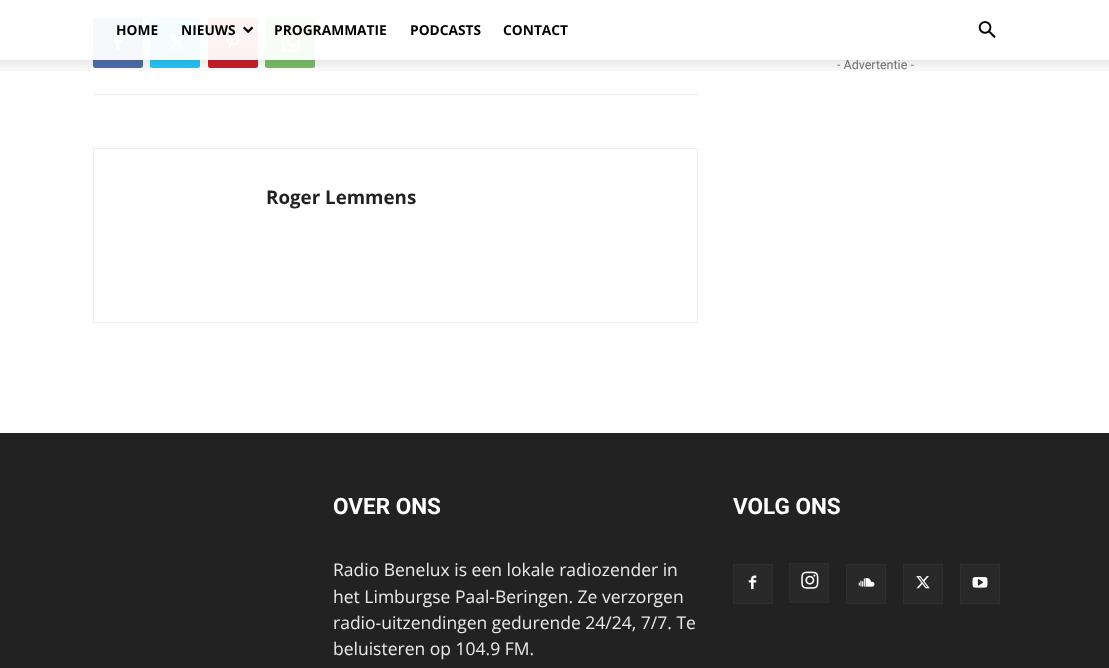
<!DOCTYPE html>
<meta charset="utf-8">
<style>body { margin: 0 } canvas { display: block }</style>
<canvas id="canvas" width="1109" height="668"></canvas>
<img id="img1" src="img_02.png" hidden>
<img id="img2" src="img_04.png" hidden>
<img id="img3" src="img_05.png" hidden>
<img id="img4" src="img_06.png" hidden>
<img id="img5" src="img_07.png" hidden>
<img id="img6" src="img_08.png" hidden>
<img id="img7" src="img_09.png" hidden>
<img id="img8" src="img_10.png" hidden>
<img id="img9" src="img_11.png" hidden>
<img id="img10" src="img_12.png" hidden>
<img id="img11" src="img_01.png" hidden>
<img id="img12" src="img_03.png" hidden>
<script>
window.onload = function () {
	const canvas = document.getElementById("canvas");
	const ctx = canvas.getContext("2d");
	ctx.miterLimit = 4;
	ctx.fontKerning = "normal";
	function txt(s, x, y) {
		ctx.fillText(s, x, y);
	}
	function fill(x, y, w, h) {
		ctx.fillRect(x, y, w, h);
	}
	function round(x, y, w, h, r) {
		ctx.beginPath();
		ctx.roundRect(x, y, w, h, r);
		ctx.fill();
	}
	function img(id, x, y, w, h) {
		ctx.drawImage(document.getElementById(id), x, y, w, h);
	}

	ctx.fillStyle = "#FFFFFF";
	fill(0, 0, 1109, 668);
	img("img1", 978, 21, 18, 17);
	ctx.fillStyle = "#EDEDED";
	fill(93, 94, 605, 1);
	ctx.fillStyle = "#516EAB";
	round(93, 18, 50, 50, 2.5);
	img("img2", 113, 34, 10, 17);
	ctx.fillStyle = "#29C5F6";
	round(150, 18, 50, 50, 2.5);
	img("img3", 169, 35, 16, 15);
	ctx.fillStyle = "#CA212A";
	round(208, 18, 50, 50, 2.5);
	img("img4", 226, 33, 13, 17);
	ctx.fillStyle = "#7BBF6A";
	round(265, 18, 50, 50, 2.5);
	img("img5", 281, 33, 20, 20);
	ctx.strokeStyle = "#EDEDED";
	ctx.strokeRect(93.5, 148.5, 604, 174);
	ctx.fillStyle = "#222222";
	fill(0, 433, 1109, 235);
	ctx.fillStyle = "#292929";
	fill(734, 565, 38, 38);
	img("img6", 748, 575, 9, 15);
	ctx.strokeStyle = "#2F2F2F";
	ctx.strokeRect(733.5, 564.5, 39, 39);
	fill(790, 564, 38, 38);
	img("img7", 801, 571, 18, 18);
	ctx.strokeRect(789.5, 563.5, 39, 39);
	fill(847, 565, 38, 38);
	img("img8", 858, 578, 17, 9);
	ctx.strokeRect(846.5, 564.5, 39, 39);
	fill(904, 565, 38, 38);
	img("img9", 916, 576, 14, 13);
	ctx.strokeRect(903.5, 564.5, 39, 39);
	fill(961, 565, 38, 38);
	img("img10", 972, 577, 16, 11);
	ctx.strokeRect(960.5, 564.5, 39, 39);
	ctx.font = "12.5px Roboto";
	ctx.fillStyle = "#767676";
	txt("- Advertentie -", 837, 69);
	ctx.fillStyle = "rgba(255, 255, 255, 0.95)";
	fill(93, 18, 765, 42);
	ctx.font = "bold 13.75px Open Sans";
	ctx.fillStyle = "#000000";
	txt("CONTACT", 503, 35);
	txt("PODCASTS", 410, 35);
	txt("PROGRAMMATIE", 274, 35);
	img("img11", 243, 26, 11, 8);
	txt("NIEUWS", 181, 35);
	txt("HOME", 116, 35);
	img("img12", 0, 60, 1109, 11);
	ctx.font = "bold 18.75px Open Sans";
	ctx.fillStyle = "#222222";
	txt("Roger Lemmens", 266, 204);
	ctx.font = "bold 22.5px Roboto";
	ctx.fillStyle = "#FFFFFF";
	txt("OVER ONS", 333, 514);
	ctx.font = "17.5px Open Sans";
	ctx.fillStyle = "#EAEAEA";
	txt("Radio Benelux is een lokale radiozender in", 333, 576);
	txt("het Limburgse Paal-Beringen. Ze verzorgen", 333, 603);
	txt("radio-uitzendingen gedurende 24/24, 7/7. Te", 333, 629);
	txt("beluisteren op 104.9 FM.", 333, 655);
	ctx.font = "bold 22.5px Roboto";
	ctx.fillStyle = "#FFFFFF";
	txt("VOLG ONS", 733, 514);
};
</script>
